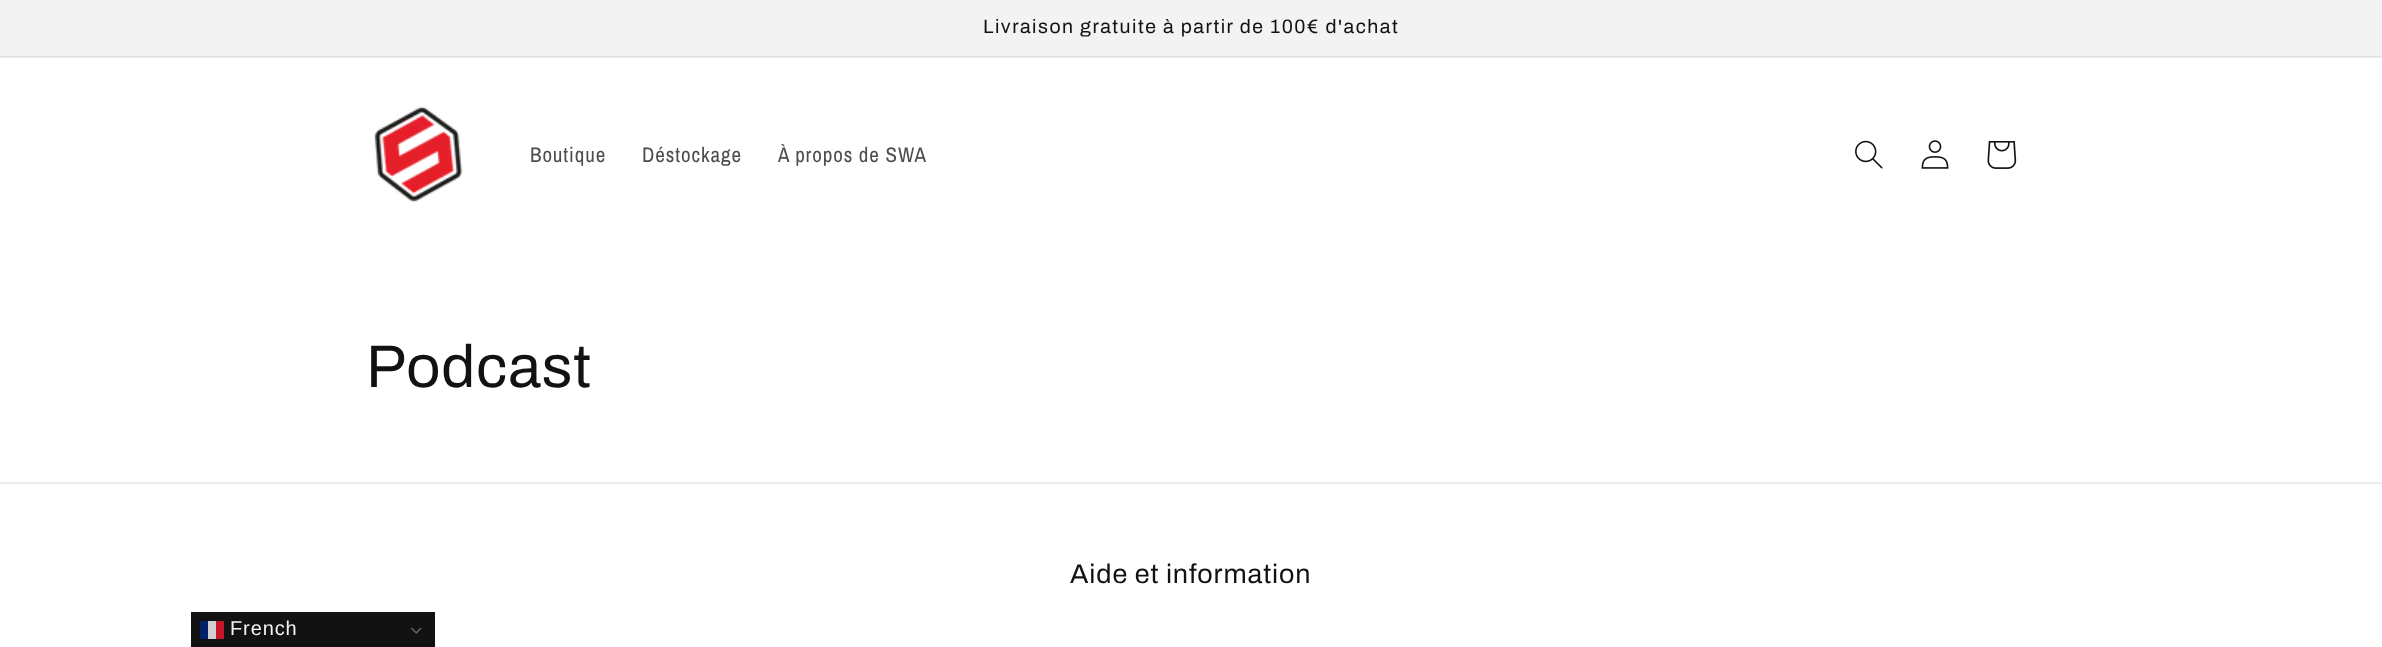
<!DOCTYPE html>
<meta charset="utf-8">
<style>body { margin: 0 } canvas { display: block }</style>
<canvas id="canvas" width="2382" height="647"></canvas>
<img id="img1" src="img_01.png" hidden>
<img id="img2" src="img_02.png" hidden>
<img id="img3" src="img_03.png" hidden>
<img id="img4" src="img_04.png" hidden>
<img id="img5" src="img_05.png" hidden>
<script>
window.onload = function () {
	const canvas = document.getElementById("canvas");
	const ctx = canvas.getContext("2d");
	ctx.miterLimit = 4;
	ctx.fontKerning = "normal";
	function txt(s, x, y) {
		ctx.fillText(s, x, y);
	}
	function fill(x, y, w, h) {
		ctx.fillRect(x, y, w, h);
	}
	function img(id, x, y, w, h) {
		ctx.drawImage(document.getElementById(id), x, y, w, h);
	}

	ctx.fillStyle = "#FFFFFF";
	fill(0, 0, 2382, 647);
	ctx.fillStyle = "#ECECEC";
	fill(0, 57, 2382, 1);
	ctx.fillStyle = "#F3F3F3";
	fill(0, 0, 2382, 56);
	ctx.fillStyle = "#E1E1E1";
	fill(0, 56, 2382, 1);
	img("img1", 374, 106, 89, 96);
	img("img2", 1855, 140, 28, 29);
	img("img3", 1921, 140, 28, 29);
	img("img4", 1987, 141, 30, 28);
	ctx.fillStyle = "#ECECEC";
	fill(0, 482, 2382, 2);
	ctx.fillStyle = "#121212";
	fill(191, 612, 244, 35);
	ctx.fillStyle = "#042269";
	fill(200, 621, 8, 18);
	ctx.fillStyle = "#D0D0D0";
	fill(208, 621, 8, 18);
	ctx.fillStyle = "#C6172A";
	fill(216, 621, 8, 18);
	img("img5", 411, 627, 11, 7);
	ctx.letterSpacing = "1.5px";
	ctx.font = "19.5px Archivo";
	ctx.fillStyle = "#121212";
	txt("Livraison gratuite à partir de 100€ d'achat", 983, 33);
	ctx.letterSpacing = "0.9px";
	ctx.font = "21px Archivo Narrow";
	ctx.fillStyle = "#4D4D4D";
	txt("Boutique", 530, 162);
	txt("Déstockage", 642, 162);
	txt("À propos de SWA", 778, 162);
	ctx.font = "60px Archivo";
	ctx.fillStyle = "#121212";
	txt("Podcast", 366, 387);
	ctx.font = "27px Archivo";
	txt("Aide et information", 1070, 583);
	ctx.font = "20px Liberation Sans";
	ctx.fillStyle = "#F3F3F3";
	txt("French", 230, 635);
};
</script>
